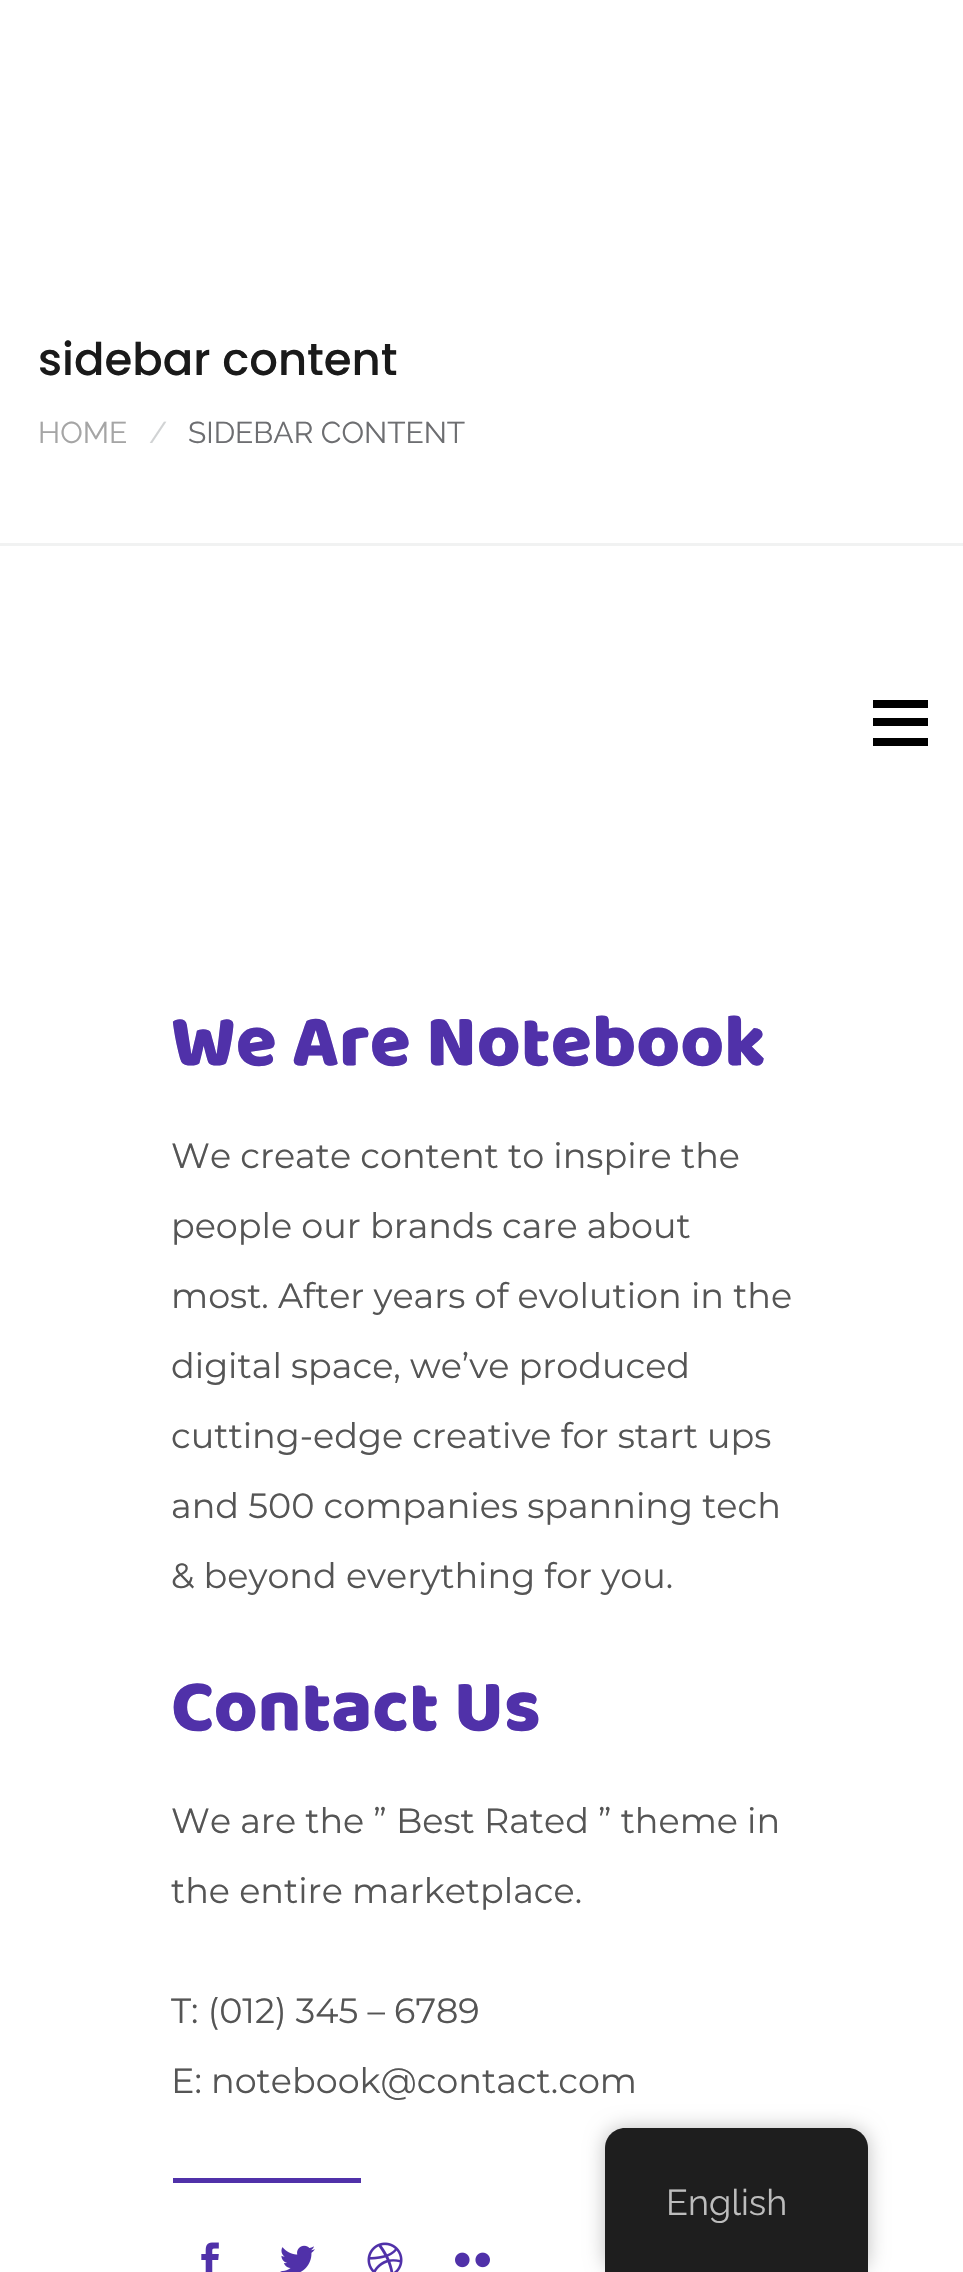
void draw(SkCanvas* canvas) {
    SkPaint paint;
    paint.setAntiAlias(true);
    canvas->clear(0xFFFFFFFF);
    paint.setColor(0xFFF1F2F2);
    canvas->drawRect(SkRect::MakeXYWH(0, 543, 963, 3), paint);
    SkFont font1(fontMgr->matchFamilyStyle("Poppins", SkFontStyle(500, SkFontStyle::kNormal_Width, SkFontStyle::kUpright_Slant)), 45);
    font1.setSubpixel(true);
    paint.setColor(0xFF1A1A1A);
    canvas->drawString("sidebar content", 38, 375, font1, paint);
    SkFont font2(fontMgr->matchFamilyStyle("Raleway", SkFontStyle::Normal()), 30);
    font2.setSubpixel(true);
    paint.setColor(0xFFA5A5A5);
    canvas->drawString("HOME", 38, 443, font2, paint);
    paint.setColor(0xFFD1D3D4);
    canvas->drawString("/", 149, 443, font2, paint);
    paint.setColor(0xFF6D6E71);
    canvas->drawString("SIDEBAR CONTENT", 188, 443, font2, paint);
    SkFont font3(fontMgr->matchFamilyStyle("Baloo", SkFontStyle::Normal()), 75);
    font3.setSubpixel(true);
    paint.setColor(0xFF5031A9);
    canvas->drawString("We Are Notebook", 171, 1065, font3, paint);
    SkFont font4(fontMgr->matchFamilyStyle("Montserrat", SkFontStyle(100, SkFontStyle::kNormal_Width, SkFontStyle::kUpright_Slant)), 35);
    font4.setSubpixel(true);
    paint.setColor(0xFF555555);
    canvas->drawString("We create content to inspire the", 171, 1168, font4, paint);
    canvas->drawString("people our brands care about", 171, 1238, font4, paint);
    canvas->drawString("most. After years of evolution in the", 171, 1308, font4, paint);
    canvas->drawString("digital space, we’ve produced", 171, 1378, font4, paint);
    canvas->drawString("cutting-edge creative for start ups", 171, 1448, font4, paint);
    canvas->drawString("and 500 companies spanning tech", 171, 1518, font4, paint);
    canvas->drawString("& beyond everything for you.", 171, 1588, font4, paint);
    paint.setColor(0xFF5031A9);
    canvas->drawString("Contact Us", 171, 1730, font3, paint);
    paint.setColor(0xFF555555);
    canvas->drawString("We are the ” Best Rated ” theme in", 171, 1833, font4, paint);
    canvas->drawString("the entire marketplace.", 171, 1903, font4, paint);
    canvas->drawString("T: (012) 345 – 6789", 171, 2023, font4, paint);
    canvas->drawString("E: notebook@contact.com", 171, 2093, font4, paint);
    paint.setColor(0xFF5031A9);
    canvas->drawRect(SkRect::MakeXYWH(173, 2178, 188, 5), paint);
    canvas->drawImageRect(SkImages::DeferredFromEncodedData(SkData::MakeFromFileName("img1.png")), SkRect::MakeXYWH(201, 2242, 18, 30), SkSamplingOptions());
    canvas->drawImageRect(SkImages::DeferredFromEncodedData(SkData::MakeFromFileName("img2.png")), SkRect::MakeXYWH(280, 2245, 35, 27), SkSamplingOptions());
    canvas->drawImageRect(SkImages::DeferredFromEncodedData(SkData::MakeFromFileName("img3.png")), SkRect::MakeXYWH(367, 2242, 36, 30), SkSamplingOptions());
    canvas->drawImageRect(SkImages::DeferredFromEncodedData(SkData::MakeFromFileName("img4.png")), SkRect::MakeXYWH(455, 2252, 35, 16), SkSamplingOptions());
    paint.setColor(0xFF000000);
    canvas->drawRect(SkRect::MakeXYWH(873, 718, 55, 8), paint);
    canvas->drawRect(SkRect::MakeXYWH(873, 700, 55, 8), paint);
    canvas->drawRect(SkRect::MakeXYWH(873, 738, 55, 8), paint);
    paint.setColor(0x40000000);
    paint.setMaskFilter(SkMaskFilter::MakeBlur(kNormal_SkBlurStyle, 10));
    canvas->drawRoundRect(SkRect::MakeXYWH(605, 2128, 263, 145), 20, 20, paint);
    paint.setMaskFilter(nullptr);
    paint.setColor(0xFF1E1E1E);
    canvas->drawPath(SkPathBuilder().moveTo(625, 2128).lineTo(848, 2128).cubicTo(859, 2128, 868, 2137, 868, 2148).lineTo(868, 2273).lineTo(605, 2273).lineTo(605, 2148).cubicTo(605, 2137, 614, 2128, 625, 2128).close().detach(), paint);
    SkFont font5(fontMgr->matchFamilyStyle("Raleway", SkFontStyle::Normal()), 36);
    font5.setSubpixel(true);
    paint.setColor(0xFFBDBDBD);
    canvas->drawString("English", 666, 2215, font5, paint);
}
